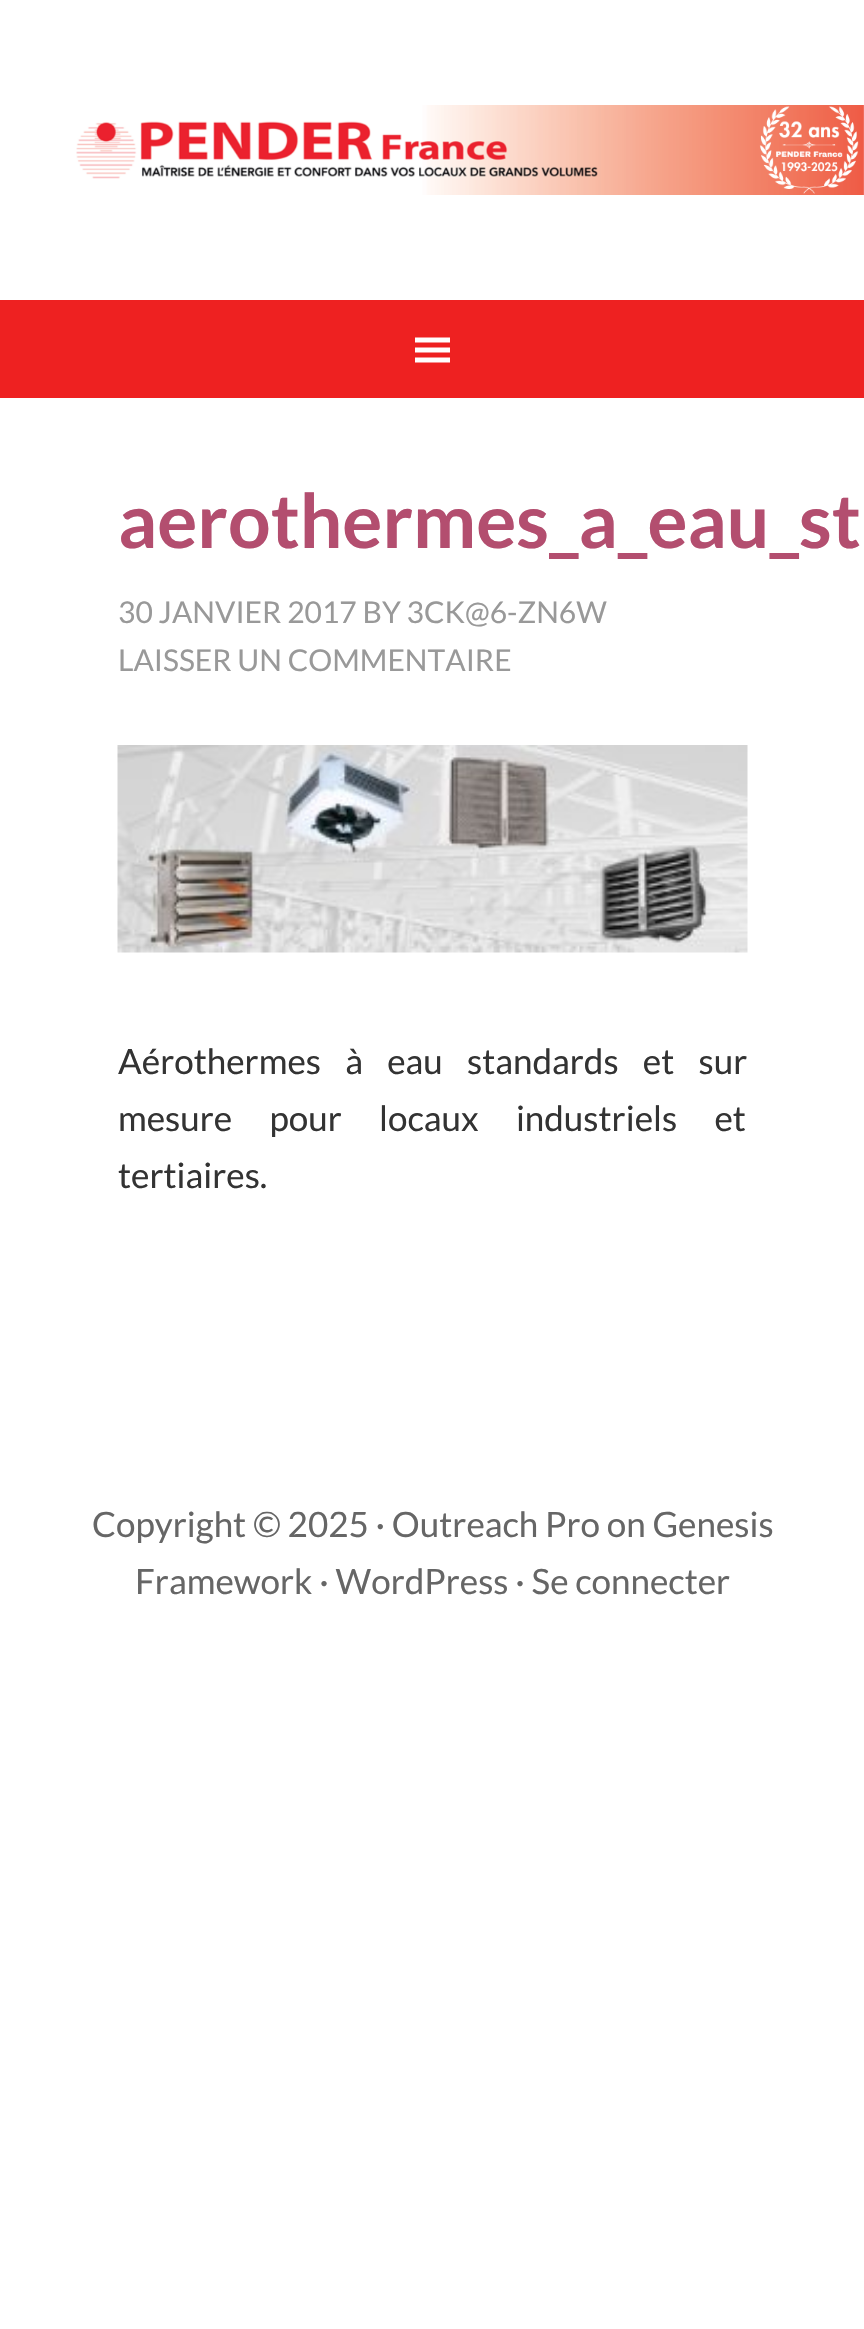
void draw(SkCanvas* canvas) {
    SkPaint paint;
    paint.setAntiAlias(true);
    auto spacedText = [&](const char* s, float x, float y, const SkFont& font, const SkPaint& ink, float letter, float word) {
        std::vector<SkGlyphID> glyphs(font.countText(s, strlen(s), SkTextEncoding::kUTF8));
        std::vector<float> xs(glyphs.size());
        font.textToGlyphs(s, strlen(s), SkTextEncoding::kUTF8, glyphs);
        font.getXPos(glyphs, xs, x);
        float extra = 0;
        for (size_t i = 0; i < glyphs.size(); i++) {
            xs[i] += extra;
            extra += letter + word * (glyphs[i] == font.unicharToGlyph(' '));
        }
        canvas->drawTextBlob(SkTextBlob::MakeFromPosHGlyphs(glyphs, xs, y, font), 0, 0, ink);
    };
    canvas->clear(0xFFFFFFFF);
    canvas->drawImageRect(SkImages::DeferredFromEncodedData(SkData::MakeFromFileName("img1.png")), SkRect::MakeXYWH(76, 105, 788, 90), SkSamplingOptions());
    paint.setColor(0xFFEE2121);
    canvas->drawRect(SkRect::MakeXYWH(0, 300, 864, 98), paint);
    paint.setColor(0xFFFFFFFF);
    canvas->drawPath(SkPathBuilder().moveTo(415, 362.5f).lineTo(450, 362.5f).lineTo(450, 357.5f).lineTo(415, 357.5f).close().moveTo(415, 337.5f).lineTo(415, 342.5f).lineTo(450, 342.5f).lineTo(450, 337.5f).close().moveTo(415, 352.5f).lineTo(450, 352.5f).lineTo(450, 347.5f).lineTo(415, 347.5f).close().detach(), paint);
    SkFont font1(fontMgr->matchFamilyStyle("Lato", SkFontStyle::Bold()), 75);
    font1.setSubpixel(true);
    paint.setColor(0xFFB34E6F);
    canvas->drawString("aerothermes_a_eau_st", 118, 548, font1, paint);
    SkFont font2(fontMgr->matchFamilyStyle("Lato", SkFontStyle::Normal()), 30);
    font2.setSubpixel(true);
    paint.setColor(0xFF999999);
    canvas->drawString("30 JANVIER 2017 BY 3CK@6-ZN6W", 118, 623, font2, paint);
    canvas->drawString("LAISSER UN COMMENTAIRE", 118, 671, font2, paint);
    canvas->drawImageRect(SkImages::DeferredFromEncodedData(SkData::MakeFromFileName("img2.png")), SkRect::MakeXYWH(117, 745, 631, 208), SkSamplingOptions());
    SkFont font3(fontMgr->matchFamilyStyle("Lato", SkFontStyle::Normal()), 35);
    font3.setSubpixel(true);
    paint.setColor(0xFF333333);
    spacedText("Aérothermes à eau standards et sur", 118, 1074, font3, paint, 0, 17.5f);
    spacedText("mesure pour locaux industriels et", 118, 1131, font3, paint, 0, 30.5f);
    canvas->drawString("tertiaires.", 118, 1188, font3, paint);
    paint.setColor(0xFF666666);
    canvas->drawString("Copyright © 2025 · Outreach Pro on Genesis", 92, 1537, font3, paint);
    canvas->drawString("Framework · WordPress · Se connecter", 135, 1594, font3, paint);
}
